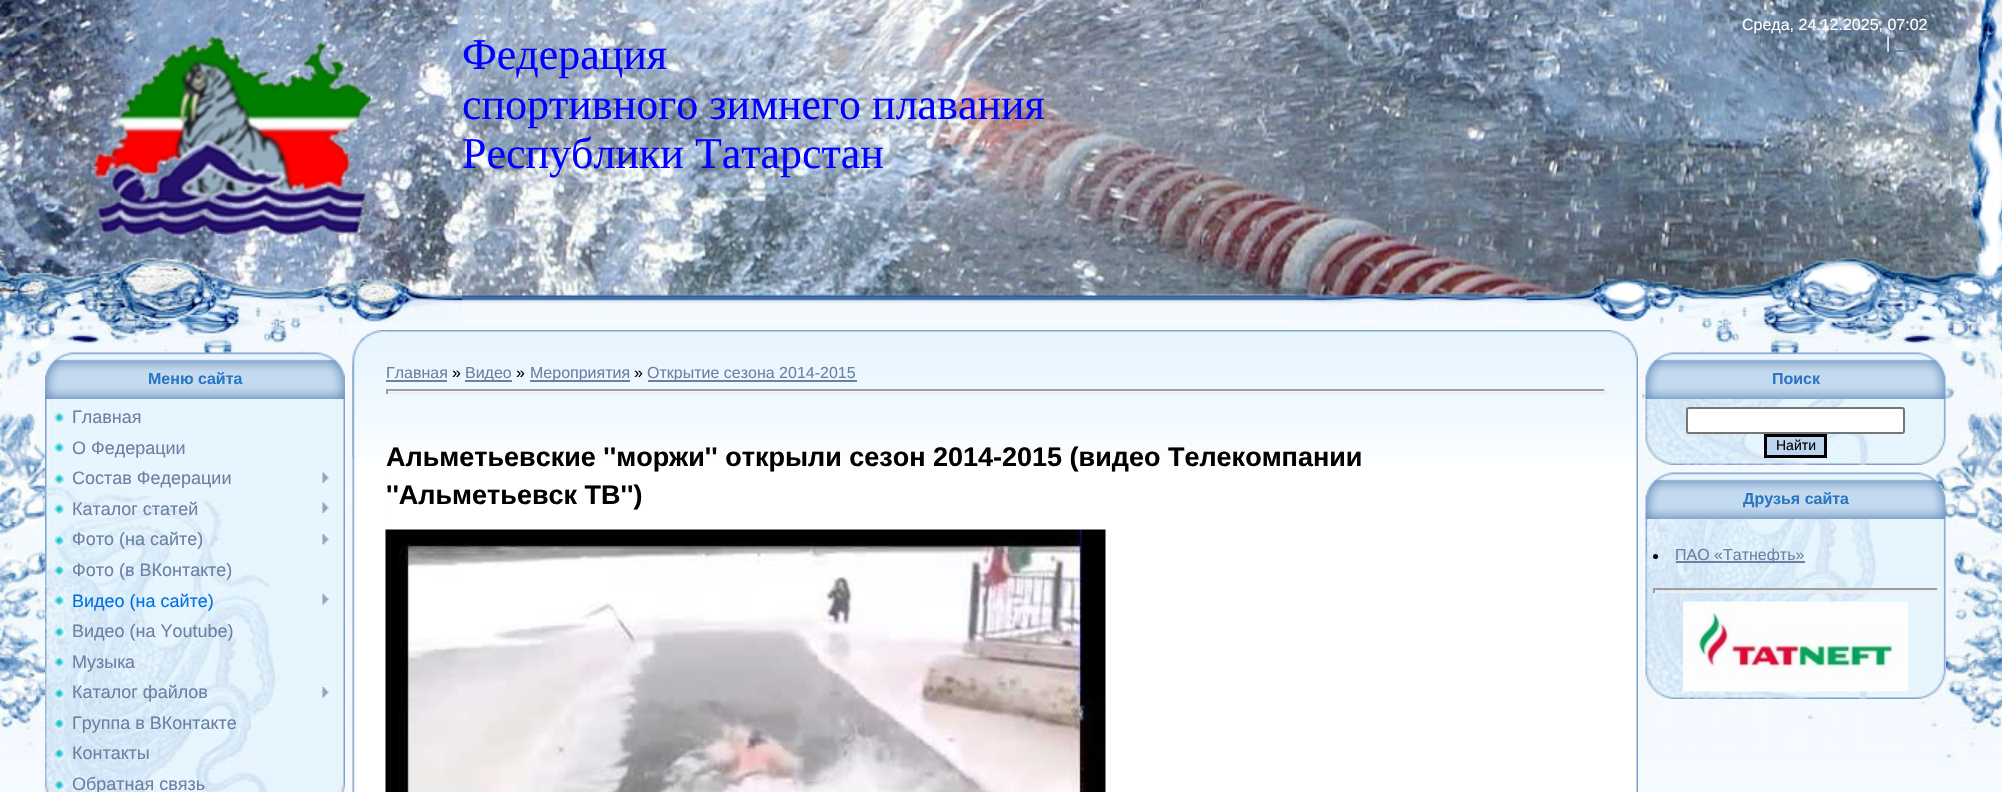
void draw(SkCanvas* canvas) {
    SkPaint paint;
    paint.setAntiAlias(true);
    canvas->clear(0xFFF4FAFF);
    canvas->drawImageRect(SkImages::DeferredFromEncodedData(SkData::MakeFromFileName("img1.png")), SkRect::MakeXYWH(0, 0, 2002, 323), SkSamplingOptions());
    canvas->drawImageRect(SkImages::DeferredFromEncodedData(SkData::MakeFromFileName("img5.png")), SkRect::MakeXYWH(0, 322, 370, 442), SkSamplingOptions());
    canvas->drawImageRect(SkImages::DeferredFromEncodedData(SkData::MakeFromFileName("img2.png")), SkRect::MakeXYWH(0, 0, 462, 323), SkSamplingOptions());
    canvas->drawImageRect(SkImages::DeferredFromEncodedData(SkData::MakeFromFileName("img3.png")), SkRect::MakeXYWH(1527, 0, 475, 323), SkSamplingOptions());
    SkFont font1(fontMgr->matchFamilyStyle("Liberation Sans", SkFontStyle::Normal()), 16);
    font1.setSubpixel(true);
    paint.setColor(0xFFFFFFFF);
    canvas->drawString("Среда, 24.12.2025, 07:02", 1742, 30, font1, paint);
    canvas->drawString("|", 1886, 48, font1, paint);
    paint.setColor(0xFF6B80A3);
    canvas->drawRect(SkRect::MakeXYWH(1895, 50, 33, 2), paint);
    SkFont font2(fontMgr->matchFamilyStyle("Liberation Serif", SkFontStyle::Normal()), 44);
    font2.setSubpixel(true);
    paint.setColor(0xFF0000FF);
    canvas->drawString("Федерация", 462, 69, font2, paint);
    canvas->drawString("спортивного зимнего плавания", 462, 119, font2, paint);
    canvas->drawString("Республики Татарстан", 462, 168, font2, paint);
    canvas->drawImageRect(SkImages::DeferredFromEncodedData(SkData::MakeFromFileName("img4.png")), SkRect::MakeXYWH(1633, 322, 369, 442), SkSamplingOptions());
    canvas->drawImageRect(SkImages::DeferredFromEncodedData(SkData::MakeFromFileName("img6.png")), SkRect::MakeXYWH(45, 352, 300, 47), SkSamplingOptions());
    SkFont font3(fontMgr->matchFamilyStyle("Liberation Sans", SkFontStyle::Bold()), 16);
    font3.setSubpixel(true);
    paint.setColor(0xFF2A75C4);
    canvas->drawString("Меню сайта", 148, 384, font3, paint);
    canvas->drawImageRect(SkImages::DeferredFromEncodedData(SkData::MakeFromFileName("img7.png")), SkRect::MakeXYWH(45, 399, 300, 393), SkSamplingOptions());
    canvas->drawImageRect(SkImages::DeferredFromEncodedData(SkData::MakeFromFileName("img8.png")), SkRect::MakeXYWH(52, 412, 14, 13), SkSamplingOptions());
    SkFont font4(fontMgr->matchFamilyStyle("Liberation Sans", SkFontStyle::Normal()), 18);
    font4.setSubpixel(true);
    paint.setColor(0xFF6B80A3);
    canvas->drawString("Главная", 72, 423, font4, paint);
    canvas->drawImageRect(SkImages::DeferredFromEncodedData(SkData::MakeFromFileName("img8.png")), SkRect::MakeXYWH(52, 442, 14, 13), SkSamplingOptions());
    canvas->drawString("О Федерации", 72, 454, font4, paint);
    canvas->drawImageRect(SkImages::DeferredFromEncodedData(SkData::MakeFromFileName("img9.png")), SkRect::MakeXYWH(52, 473, 14, 13), SkSamplingOptions());
    canvas->drawString("Состав Федерации", 72, 484, font4, paint);
    canvas->drawImageRect(SkImages::DeferredFromEncodedData(SkData::MakeFromFileName("img10.png")), SkRect::MakeXYWH(322, 472, 7, 11), SkSamplingOptions());
    canvas->drawImageRect(SkImages::DeferredFromEncodedData(SkData::MakeFromFileName("img11.png")), SkRect::MakeXYWH(52, 503, 14, 13), SkSamplingOptions());
    canvas->drawString("Каталог статей", 72, 515, font4, paint);
    canvas->drawImageRect(SkImages::DeferredFromEncodedData(SkData::MakeFromFileName("img10.png")), SkRect::MakeXYWH(322, 502, 7, 11), SkSamplingOptions());
    canvas->drawImageRect(SkImages::DeferredFromEncodedData(SkData::MakeFromFileName("img12.png")), SkRect::MakeXYWH(52, 534, 14, 14), SkSamplingOptions());
    canvas->drawString("Фото (на сайте)", 72, 545, font4, paint);
    canvas->drawImageRect(SkImages::DeferredFromEncodedData(SkData::MakeFromFileName("img13.png")), SkRect::MakeXYWH(322, 534, 7, 11), SkSamplingOptions());
    canvas->drawImageRect(SkImages::DeferredFromEncodedData(SkData::MakeFromFileName("img14.png")), SkRect::MakeXYWH(52, 565, 14, 13), SkSamplingOptions());
    canvas->drawString("Фото (в ВКонтакте)", 72, 576, font4, paint);
    canvas->drawImageRect(SkImages::DeferredFromEncodedData(SkData::MakeFromFileName("img15.png")), SkRect::MakeXYWH(53, 594, 13, 14), SkSamplingOptions());
    paint.setColor(0xFF006FE3);
    canvas->drawString("Видео (на сайте)", 72, 607, font4, paint);
    canvas->drawImageRect(SkImages::DeferredFromEncodedData(SkData::MakeFromFileName("img13.png")), SkRect::MakeXYWH(322, 594, 7, 11), SkSamplingOptions());
    canvas->drawImageRect(SkImages::DeferredFromEncodedData(SkData::MakeFromFileName("img16.png")), SkRect::MakeXYWH(52, 625, 14, 14), SkSamplingOptions());
    paint.setColor(0xFF6B80A3);
    canvas->drawString("Видео (на Youtube)", 72, 637, font4, paint);
    canvas->drawImageRect(SkImages::DeferredFromEncodedData(SkData::MakeFromFileName("img17.png")), SkRect::MakeXYWH(52, 655, 14, 14), SkSamplingOptions());
    canvas->drawString("Музыка", 72, 668, font4, paint);
    canvas->drawImageRect(SkImages::DeferredFromEncodedData(SkData::MakeFromFileName("img18.png")), SkRect::MakeXYWH(52, 687, 14, 14), SkSamplingOptions());
    canvas->drawString("Каталог файлов", 72, 698, font4, paint);
    canvas->drawImageRect(SkImages::DeferredFromEncodedData(SkData::MakeFromFileName("img13.png")), SkRect::MakeXYWH(322, 687, 7, 11), SkSamplingOptions());
    canvas->drawImageRect(SkImages::DeferredFromEncodedData(SkData::MakeFromFileName("img19.png")), SkRect::MakeXYWH(52, 717, 14, 14), SkSamplingOptions());
    canvas->drawString("Группа в ВКонтакте", 72, 729, font4, paint);
    canvas->drawImageRect(SkImages::DeferredFromEncodedData(SkData::MakeFromFileName("img20.png")), SkRect::MakeXYWH(52, 747, 14, 14), SkSamplingOptions());
    canvas->drawString("Контакты", 72, 759, font4, paint);
    canvas->drawImageRect(SkImages::DeferredFromEncodedData(SkData::MakeFromFileName("img21.png")), SkRect::MakeXYWH(52, 778, 14, 14), SkSamplingOptions());
    canvas->drawString("Обратная связь", 72, 790, font4, paint);
    canvas->drawImageRect(SkImages::DeferredFromEncodedData(SkData::MakeFromFileName("img23.png")), SkRect::MakeXYWH(385, 330, 1220, 33), SkSamplingOptions());
    canvas->drawImageRect(SkImages::DeferredFromEncodedData(SkData::MakeFromFileName("img22.png")), SkRect::MakeXYWH(352, 330, 34, 33), SkSamplingOptions());
    canvas->drawImageRect(SkImages::DeferredFromEncodedData(SkData::MakeFromFileName("img24.png")), SkRect::MakeXYWH(1605, 330, 33, 33), SkSamplingOptions());
    canvas->drawImageRect(SkImages::DeferredFromEncodedData(SkData::MakeFromFileName("img25.png")), SkRect::MakeXYWH(352, 363, 34, 429), SkSamplingOptions());
    canvas->drawImageRect(SkImages::DeferredFromEncodedData(SkData::MakeFromFileName("img27.png")), SkRect::MakeXYWH(385, 363, 1220, 94), SkSamplingOptions());
    canvas->drawImageRect(SkImages::DeferredFromEncodedData(SkData::MakeFromFileName("img26.png")), SkRect::MakeXYWH(352, 363, 34, 95), SkSamplingOptions());
    paint.setColor(0xFFFFFFFF);
    canvas->drawRect(SkRect::MakeXYWH(386, 457, 1219, 335), paint);
    paint.setColor(0xFF6B80A3);
    canvas->drawString("Главная", 386, 378, font1, paint);
    canvas->drawRect(SkRect::MakeXYWH(386, 380, 61, 2), paint);
    paint.setColor(0xFF000000);
    canvas->drawString("»", 452, 378, font1, paint);
    paint.setColor(0xFF6B80A3);
    canvas->drawRect(SkRect::MakeXYWH(465, 380, 47, 2), paint);
    canvas->drawString("Видео", 465, 378, font1, paint);
    paint.setColor(0xFF000000);
    canvas->drawString("»", 516, 378, font1, paint);
    paint.setColor(0xFF6B80A3);
    canvas->drawRect(SkRect::MakeXYWH(530, 380, 100, 2), paint);
    canvas->drawString("Мероприятия", 530, 378, font1, paint);
    paint.setColor(0xFF000000);
    canvas->drawString("»", 634, 378, font1, paint);
    paint.setColor(0xFF6B80A3);
    canvas->drawRect(SkRect::MakeXYWH(648, 380, 209, 2), paint);
    canvas->drawString("Открытие сезона 2014-2015", 647, 378, font1, paint);
    paint.setColor(0xFF9F9F9F);
    canvas->drawRect(SkRect::MakeXYWH(386, 389, 1219, 2), paint);
    canvas->drawImageRect(SkImages::DeferredFromEncodedData(SkData::MakeFromFileName("img29.png")), SkRect::MakeXYWH(1605, 363, 33, 429), SkSamplingOptions());
    canvas->drawImageRect(SkImages::DeferredFromEncodedData(SkData::MakeFromFileName("img30.png")), SkRect::MakeXYWH(1605, 363, 32, 94), SkSamplingOptions());
    paint.setColor(0xFFEEEEEE);
    canvas->drawRect(SkRect::MakeXYWH(1604, 389, 2, 5), paint);
    canvas->drawRect(SkRect::MakeXYWH(386, 392, 1219, 2), paint);
    paint.setColor(0xFF9F9F9F);
    canvas->drawRect(SkRect::MakeXYWH(386, 389, 2, 5), paint);
    SkFont font5(fontMgr->matchFamilyStyle("Liberation Sans", SkFontStyle::Bold()), 27);
    font5.setSubpixel(true);
    paint.setColor(0xFF000000);
    canvas->drawString("Альметьевские ''моржи'' открыли сезон 2014-2015 (видео Телекомпании", 386, 466, font5, paint);
    canvas->drawString("''Альметьевск ТВ'')", 386, 504, font5, paint);
    canvas->drawImageRect(SkImages::DeferredFromEncodedData(SkData::MakeFromFileName("img28.png")), SkRect::MakeXYWH(385, 529, 721, 263), SkSamplingOptions());
    canvas->drawImageRect(SkImages::DeferredFromEncodedData(SkData::MakeFromFileName("img31.png")), SkRect::MakeXYWH(1645, 352, 301, 47), SkSamplingOptions());
    paint.setColor(0xFF2A75C4);
    canvas->drawString("Поиск", 1772, 384, font3, paint);
    paint.setColor(0xFFE7F5FF);
    canvas->drawRect(SkRect::MakeXYWH(1945, 399, 1, 66), paint);
    canvas->drawImageRect(SkImages::DeferredFromEncodedData(SkData::MakeFromFileName("img32.png")), SkRect::MakeXYWH(1645, 399, 301, 66), SkSamplingOptions());
    paint.setColor(0xFFFFFFFF);
    canvas->drawRoundRect(SkRect::MakeXYWH(1687, 408, 217, 25), 2, 2, paint);
    paint.setStyle(SkPaint::kStroke_Style);
    paint.setStrokeWidth(2);
    paint.setColor(0xFF767676);
    canvas->drawRoundRect(SkRect::MakeXYWH(1687, 408, 217, 25), 2, 2, paint);
    paint.setStyle(SkPaint::kFill_Style);
    paint.setColor(0xFFBCD4EB);
    canvas->drawRect(SkRect::MakeXYWH(1765.5f, 435.5f, 60, 21), paint);
    paint.setStyle(SkPaint::kStroke_Style);
    paint.setStrokeWidth(3);
    paint.setColor(0xFF000000);
    canvas->drawRect(SkRect::MakeXYWH(1765.5f, 435.5f, 60, 21), paint);
    SkFont font6(fontMgr->matchFamilyStyle("Liberation Sans", SkFontStyle::Normal()), 14);
    font6.setSubpixel(true);
    paint.setStyle(SkPaint::kFill_Style);
    canvas->drawString("Найти", 1776, 450, font6, paint);
    canvas->drawImageRect(SkImages::DeferredFromEncodedData(SkData::MakeFromFileName("img33.png")), SkRect::MakeXYWH(1645, 472, 301, 47), SkSamplingOptions());
    paint.setColor(0xFF2A75C4);
    canvas->drawString("Друзья сайта", 1743, 504, font3, paint);
    paint.setColor(0xFFE7F5FF);
    canvas->drawRect(SkRect::MakeXYWH(1945, 519, 1, 180), paint);
    canvas->drawImageRect(SkImages::DeferredFromEncodedData(SkData::MakeFromFileName("img34.png")), SkRect::MakeXYWH(1645, 519, 301, 180), SkSamplingOptions());
    paint.setColor(0xFF000000);
    canvas->drawCircle(1655.5f, 556.5f, 2.5f, paint);
    paint.setColor(0xFF6B80A3);
    canvas->drawRect(SkRect::MakeXYWH(1676, 561, 129, 2), paint);
    canvas->drawString("ПАО «Татнефть»", 1675, 560, font1, paint);
    paint.setColor(0xFF9F9F9F);
    canvas->drawRect(SkRect::MakeXYWH(1653, 588, 285, 2), paint);
    paint.setColor(0xFFEEEEEE);
    canvas->drawRect(SkRect::MakeXYWH(1937, 588, 2, 5), paint);
    canvas->drawRect(SkRect::MakeXYWH(1653, 591, 285, 2), paint);
    paint.setColor(0xFF9F9F9F);
    canvas->drawRect(SkRect::MakeXYWH(1653, 588, 2, 5), paint);
    canvas->drawImageRect(SkImages::DeferredFromEncodedData(SkData::MakeFromFileName("img35.png")), SkRect::MakeXYWH(1683, 601, 225, 91), SkSamplingOptions());
}
